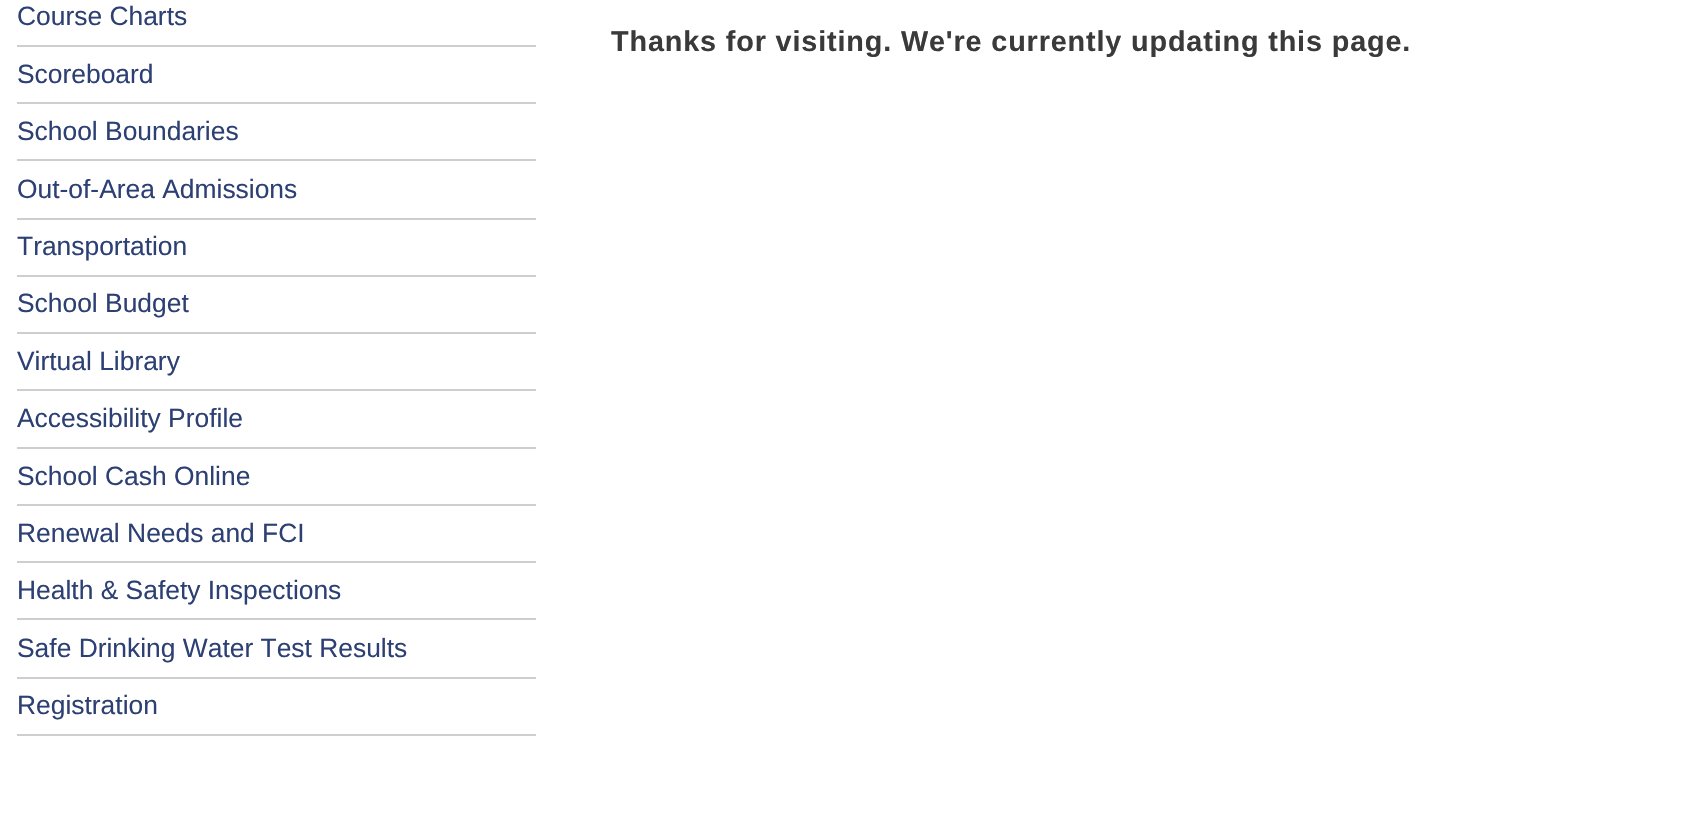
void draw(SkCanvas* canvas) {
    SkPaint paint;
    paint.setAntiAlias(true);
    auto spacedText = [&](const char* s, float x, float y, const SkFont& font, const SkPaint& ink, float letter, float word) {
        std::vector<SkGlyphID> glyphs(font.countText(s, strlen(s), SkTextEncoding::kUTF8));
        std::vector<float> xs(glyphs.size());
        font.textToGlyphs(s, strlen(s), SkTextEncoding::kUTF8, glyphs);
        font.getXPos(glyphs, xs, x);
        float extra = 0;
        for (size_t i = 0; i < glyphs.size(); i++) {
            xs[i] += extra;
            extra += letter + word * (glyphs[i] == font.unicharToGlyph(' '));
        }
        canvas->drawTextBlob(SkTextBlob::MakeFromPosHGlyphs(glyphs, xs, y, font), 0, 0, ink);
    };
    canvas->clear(0xFFFFFFFF);
    paint.setColor(0xFFCECECE);
    canvas->drawRect(SkRect::MakeXYWH(17, 45, 519, 2), paint);
    SkFont font1(fontMgr->matchFamilyStyle("Liberation Sans", SkFontStyle::Normal()), 26.4f);
    font1.setSubpixel(true);
    paint.setColor(0xFF2D4074);
    canvas->drawString("Course Charts", 17, 25, font1, paint);
    paint.setColor(0xFFCECECE);
    canvas->drawRect(SkRect::MakeXYWH(17, 102, 519, 2), paint);
    paint.setColor(0xFF2D4074);
    canvas->drawString("Scoreboard", 17, 83, font1, paint);
    paint.setColor(0xFFCECECE);
    canvas->drawRect(SkRect::MakeXYWH(17, 159, 519, 2), paint);
    paint.setColor(0xFF2D4074);
    canvas->drawString("School Boundaries", 17, 140, font1, paint);
    paint.setColor(0xFFCECECE);
    canvas->drawRect(SkRect::MakeXYWH(17, 218, 519, 2), paint);
    paint.setColor(0xFF2D4074);
    canvas->drawString("Out-of-Area Admissions", 17, 198, font1, paint);
    paint.setColor(0xFFCECECE);
    canvas->drawRect(SkRect::MakeXYWH(17, 275, 519, 2), paint);
    paint.setColor(0xFF2D4074);
    canvas->drawString("Transportation", 17, 255, font1, paint);
    paint.setColor(0xFFCECECE);
    canvas->drawRect(SkRect::MakeXYWH(17, 332, 519, 2), paint);
    paint.setColor(0xFF2D4074);
    canvas->drawString("School Budget", 17, 312, font1, paint);
    paint.setColor(0xFFCECECE);
    canvas->drawRect(SkRect::MakeXYWH(17, 389, 519, 2), paint);
    paint.setColor(0xFF2D4074);
    canvas->drawString("Virtual Library", 17, 370, font1, paint);
    paint.setColor(0xFFCECECE);
    canvas->drawRect(SkRect::MakeXYWH(17, 447, 519, 2), paint);
    paint.setColor(0xFF2D4074);
    canvas->drawString("Accessibility Profile", 17, 427, font1, paint);
    paint.setColor(0xFFCECECE);
    canvas->drawRect(SkRect::MakeXYWH(17, 504, 519, 2), paint);
    paint.setColor(0xFF2D4074);
    canvas->drawString("School Cash Online", 17, 485, font1, paint);
    paint.setColor(0xFFCECECE);
    canvas->drawRect(SkRect::MakeXYWH(17, 561, 519, 2), paint);
    paint.setColor(0xFF2D4074);
    canvas->drawString("Renewal Needs and FCI", 17, 542, font1, paint);
    paint.setColor(0xFFCECECE);
    canvas->drawRect(SkRect::MakeXYWH(17, 618, 519, 2), paint);
    paint.setColor(0xFF2D4074);
    canvas->drawString("Health & Safety Inspections", 17, 599, font1, paint);
    paint.setColor(0xFFCECECE);
    canvas->drawRect(SkRect::MakeXYWH(17, 677, 519, 2), paint);
    paint.setColor(0xFF2D4074);
    canvas->drawString("Safe Drinking Water Test Results", 17, 657, font1, paint);
    paint.setColor(0xFFCECECE);
    canvas->drawRect(SkRect::MakeXYWH(17, 734, 519, 2), paint);
    paint.setColor(0xFF2D4074);
    canvas->drawString("Registration", 17, 714, font1, paint);
    SkFont font2(fontMgr->matchFamilyStyle("Liberation Sans", SkFontStyle::Bold()), 28.8f);
    font2.setSubpixel(true);
    paint.setColor(0xFF3A3A3A);
    spacedText("Thanks for visiting. We're currently updating this page.", 611, 51, font2, paint, 0.85f, 0);
}
